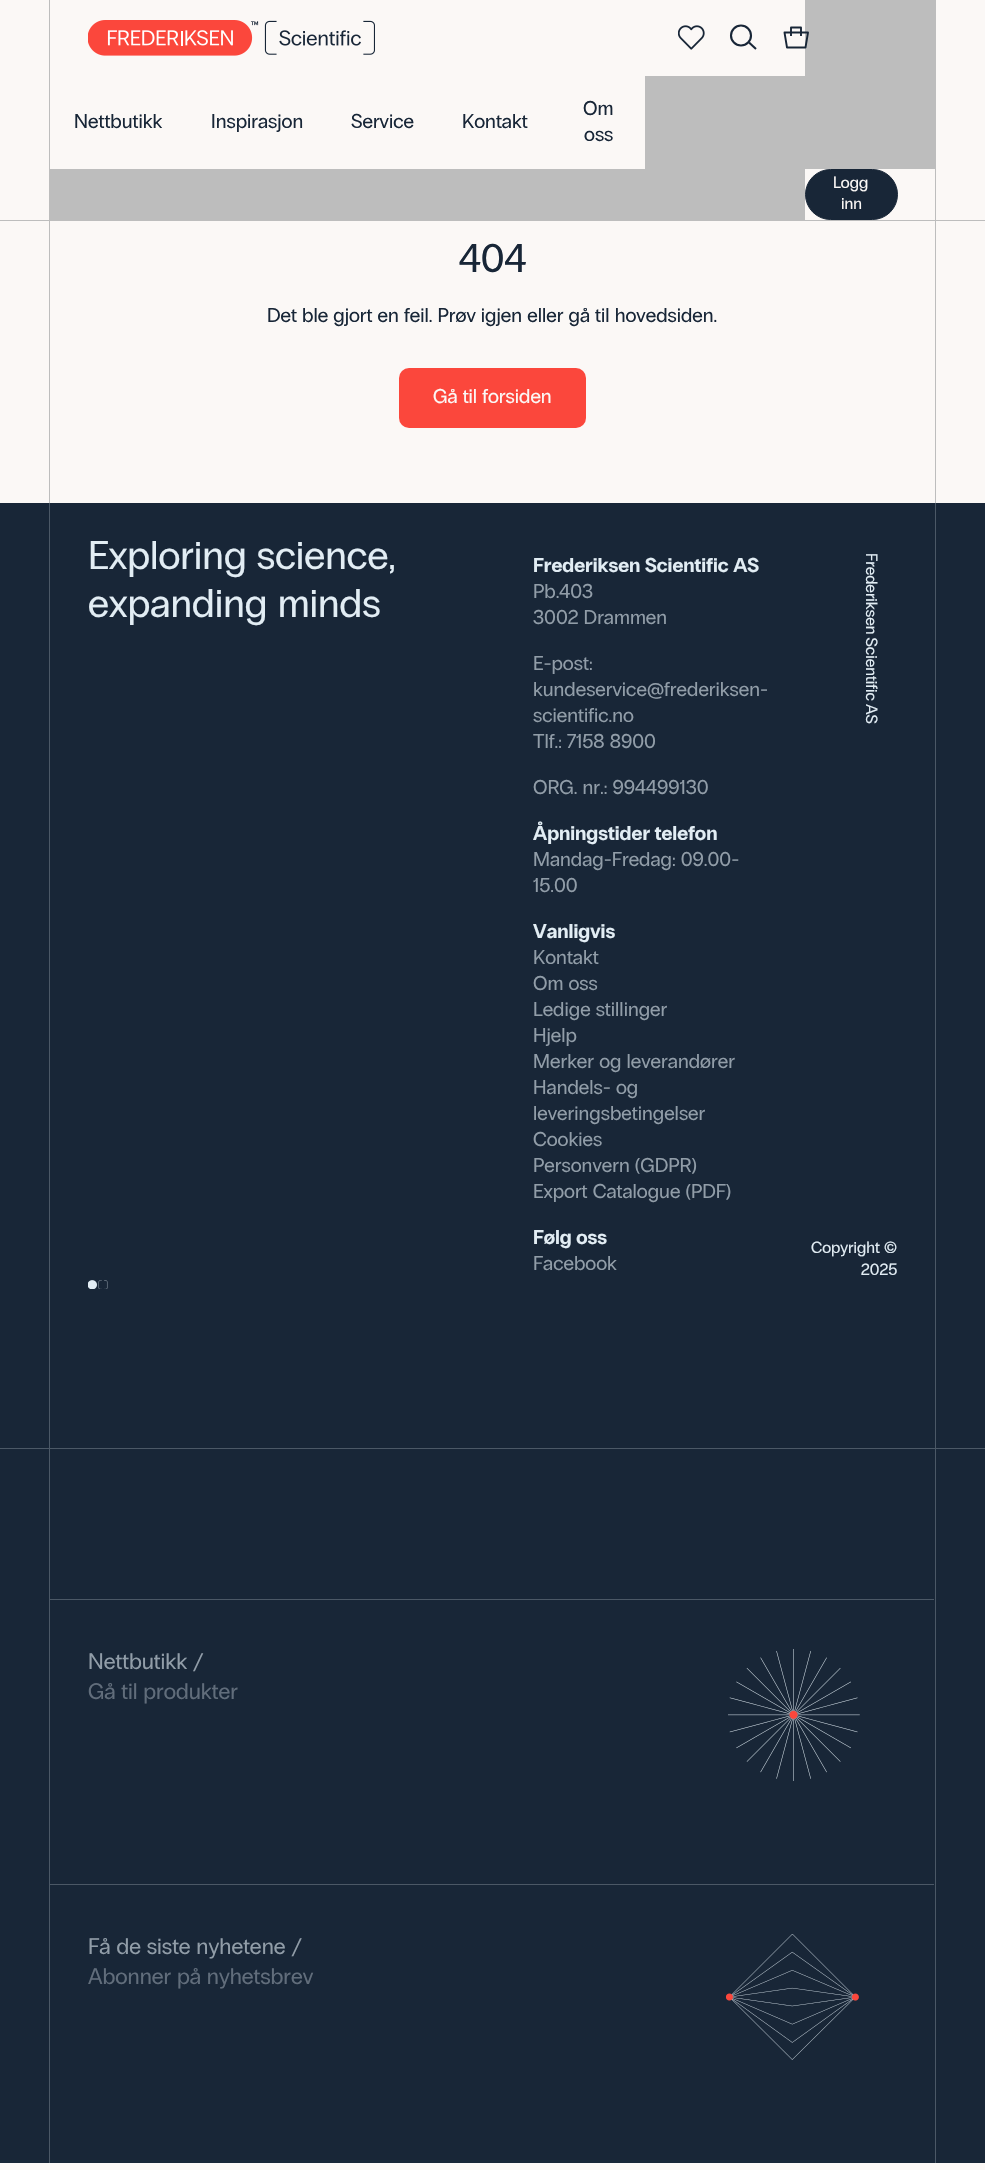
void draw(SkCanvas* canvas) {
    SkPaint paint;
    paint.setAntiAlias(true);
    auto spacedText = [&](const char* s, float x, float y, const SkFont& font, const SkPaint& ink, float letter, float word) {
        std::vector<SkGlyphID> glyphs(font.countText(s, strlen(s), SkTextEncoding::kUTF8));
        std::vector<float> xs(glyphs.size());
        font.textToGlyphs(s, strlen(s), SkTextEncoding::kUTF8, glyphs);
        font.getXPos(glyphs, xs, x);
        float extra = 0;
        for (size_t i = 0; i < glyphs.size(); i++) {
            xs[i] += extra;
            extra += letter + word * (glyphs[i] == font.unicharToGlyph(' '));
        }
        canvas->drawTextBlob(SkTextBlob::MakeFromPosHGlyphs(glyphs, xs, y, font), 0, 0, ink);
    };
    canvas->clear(0xFFFBF8F6);
    paint.setColor(0xFFBDBDBD);
    canvas->drawRect(SkRect::MakeXYWH(0, 220, 985, 1), paint);
    canvas->drawRect(SkRect::MakeXYWH(935, 0, 1, 220), paint);
    canvas->drawRect(SkRect::MakeXYWH(49, 0, 886, 220), paint);
    paint.setColor(0xFFFBF8F6);
    canvas->drawRect(SkRect::MakeXYWH(50, 0, 755, 76), paint);
    canvas->drawImageRect(SkImages::DeferredFromEncodedData(SkData::MakeFromFileName("img1.png")), SkRect::MakeXYWH(88, 20, 287, 36), SkSamplingOptions());
    canvas->drawImageRect(SkImages::DeferredFromEncodedData(SkData::MakeFromFileName("img2.png")), SkRect::MakeXYWH(678, 25, 27, 25), SkSamplingOptions());
    paint.setStyle(SkPaint::kStroke_Style);
    paint.setStrokeWidth(2.1f);
    paint.setColor(0xFF182637);
    canvas->drawCircle(741, 35.5f, 10, paint);
    canvas->drawPath(SkPathBuilder().moveTo(749, 42.5f).lineTo(756, 49).detach(), paint);
    paint.setStrokeWidth(1.9f);
    paint.setStrokeJoin(SkPaint::kRound_Join);
    canvas->drawPath(SkPathBuilder().moveTo(787, 47.5f).lineTo(784.5f, 32.5f).lineTo(808, 32.5f).lineTo(805.5f, 47.5f).close().moveTo(791, 36).lineTo(791, 27.5f).lineTo(801, 27.5f).lineTo(801, 36).detach(), paint);
    paint.setStyle(SkPaint::kFill_Style);
    paint.setColor(0xFFFBF8F6);
    canvas->drawRect(SkRect::MakeXYWH(50, 76, 595, 93), paint);
    SkFont font1(fontMgr->matchFamilyStyle("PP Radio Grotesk", SkFontStyle::Normal()), 20);
    font1.setSubpixel(true);
    paint.setColor(0xFF182637);
    canvas->drawString("Nettbutikk", 74, 128, font1, paint);
    canvas->drawString("Inspirasjon", 211, 128, font1, paint);
    canvas->drawString("Service", 351, 128, font1, paint);
    canvas->drawString("Kontakt", 462, 128, font1, paint);
    canvas->drawString("Om", 583, 115, font1, paint);
    canvas->drawString("oss", 584, 141, font1, paint);
    paint.setColor(0xFFFBF8F6);
    canvas->drawRect(SkRect::MakeXYWH(805, 169, 130, 51), paint);
    paint.setColor(0xFF182637);
    canvas->drawRoundRect(SkRect::MakeXYWH(805.5f, 169.5f, 92, 50), 25, 25, paint);
    paint.setStyle(SkPaint::kStroke_Style);
    paint.setStrokeWidth(1);
    paint.setStrokeJoin(SkPaint::kMiter_Join);
    canvas->drawRoundRect(SkRect::MakeXYWH(805.5f, 169.5f, 92, 50), 25, 25, paint);
    SkFont font2(fontMgr->matchFamilyStyle("PP Radio Grotesk", SkFontStyle::Normal()), 16.25f);
    font2.setSubpixel(true);
    paint.setStyle(SkPaint::kFill_Style);
    paint.setColor(0xFFFBF8F6);
    canvas->drawString("Logg", 833, 188, font2, paint);
    canvas->drawString("inn", 841, 209, font2, paint);
    paint.setColor(0xFFBDBDBD);
    canvas->drawRect(SkRect::MakeXYWH(935, 221, 1, 282), paint);
    canvas->drawRect(SkRect::MakeXYWH(49, 221, 1, 282), paint);
    SkFont font3(fontMgr->matchFamilyStyle("PP Radio Grotesk", SkFontStyle::Normal()), 40);
    font3.setSubpixel(true);
    paint.setColor(0xFF182637);
    canvas->drawString("404", 459, 272, font3, paint);
    canvas->drawString("Det ble gjort en feil. Prøv igjen eller gå til hovedsiden.", 267, 322, font1, paint);
    paint.setColor(0xFFFB473C);
    canvas->drawRoundRect(SkRect::MakeXYWH(399, 368, 187, 60), 10, 10, paint);
    paint.setColor(0xFFFBF8F6);
    canvas->drawString("Gå til forsiden", 433, 403, font1, paint);
    paint.setColor(0xFF182637);
    canvas->drawRect(SkRect::MakeXYWH(0, 503, 985, 1660), paint);
    paint.setColor(0xFF4B5866);
    canvas->drawRect(SkRect::MakeXYWH(935, 503, 1, 1660), paint);
    canvas->drawRect(SkRect::MakeXYWH(49, 503, 1, 1660), paint);
    paint.setColor(0xFFE2EDF4);
    canvas->drawString("Exploring science,", 88, 569, font3, paint);
    canvas->drawString("expanding minds", 88, 617, font3, paint);
    SkFont font4(fontMgr->matchFamilyStyle("PP Radio Grotesk", SkFontStyle::Bold()), 20);
    font4.setSubpixel(true);
    canvas->drawString("Frederiksen Scientific AS", 533, 572, font4, paint);
    paint.setColor(0xFF919DA8);
    canvas->drawString("Pb.403", 533, 598, font1, paint);
    canvas->drawString("3002 Drammen", 533, 624, font1, paint);
    canvas->drawString("E-post:", 533, 670, font1, paint);
    canvas->drawString("kundeservice@frederiksen-", 533, 696, font1, paint);
    canvas->drawString("scientific.no", 533, 722, font1, paint);
    canvas->drawString("Tlf.: 7158 8900", 533, 748, font1, paint);
    canvas->drawString("ORG. nr.: 994499130", 533, 794, font1, paint);
    paint.setColor(0xFFE2EDF4);
    canvas->drawString("Åpningstider telefon", 533, 840, font4, paint);
    paint.setColor(0xFF919DA8);
    canvas->drawString("Mandag-Fredag: 09.00-", 533, 866, font1, paint);
    canvas->drawString("15.00", 533, 892, font1, paint);
    paint.setColor(0xFFE2EDF4);
    canvas->drawString("Vanligvis", 533, 938, font4, paint);
    paint.setColor(0xFF919DA8);
    canvas->drawString("Kontakt", 533, 964, font1, paint);
    canvas->drawString("Om oss", 533, 990, font1, paint);
    canvas->drawString("Ledige stillinger", 533, 1016, font1, paint);
    canvas->drawString("Hjelp", 533, 1042, font1, paint);
    canvas->drawString("Merker og leverandører", 533, 1068, font1, paint);
    canvas->drawString("Handels- og", 533, 1094, font1, paint);
    canvas->drawString("leveringsbetingelser", 533, 1120, font1, paint);
    canvas->drawString("Cookies", 533, 1146, font1, paint);
    canvas->drawString("Personvern (GDPR)", 533, 1172, font1, paint);
    canvas->drawString("Export Catalogue (PDF)", 533, 1198, font1, paint);
    paint.setColor(0xFFE2EDF4);
    canvas->drawString("Følg oss", 533, 1244, font4, paint);
    paint.setColor(0xFF919DA8);
    canvas->drawString("Facebook", 533, 1270, font1, paint);
    paint.setColor(0xFFE2EDF4);
    canvas->save();
    canvas->rotate(90, 866, 553);
    spacedText("Frederiksen Scientific AS", 866, 553, font2, paint, 0, -1);
    canvas->restore();
    canvas->drawString("Copyright ©", 811, 1253, font2, paint);
    canvas->drawString("2025", 861, 1275, font2, paint);
    canvas->drawImageRect(SkImages::DeferredFromEncodedData(SkData::MakeFromFileName("img3.png")), SkRect::MakeXYWH(88, 1280, 20, 9), SkSamplingOptions());
    paint.setColor(0xFF4B5866);
    canvas->drawRect(SkRect::MakeXYWH(0, 1448, 985, 1), paint);
    canvas->drawRect(SkRect::MakeXYWH(50, 1599, 884, 1), paint);
    SkFont font5(fontMgr->matchFamilyStyle("PP Radio Grotesk", SkFontStyle::Normal()), 22.5f);
    font5.setSubpixel(true);
    paint.setColor(0xFF919DA8);
    canvas->drawString("Nettbutikk /", 88, 1669, font5, paint);
    paint.setColor(0xFF616D7B);
    canvas->drawString("Gå til produkter", 88, 1699, font5, paint);
    canvas->drawImageRect(SkImages::DeferredFromEncodedData(SkData::MakeFromFileName("img4.png")), SkRect::MakeXYWH(728, 1649, 132, 132), SkSamplingOptions());
    paint.setColor(0xFF4B5866);
    canvas->drawRect(SkRect::MakeXYWH(50, 1884, 884, 1), paint);
    paint.setColor(0xFF919DA8);
    canvas->drawString("Få de siste nyhetene /", 88, 1954, font5, paint);
    paint.setColor(0xFF616D7B);
    canvas->drawString("Abonner på nyhetsbrev", 88, 1984, font5, paint);
    canvas->drawImageRect(SkImages::DeferredFromEncodedData(SkData::MakeFromFileName("img5.png")), SkRect::MakeXYWH(726, 1934, 133, 126), SkSamplingOptions());
}
